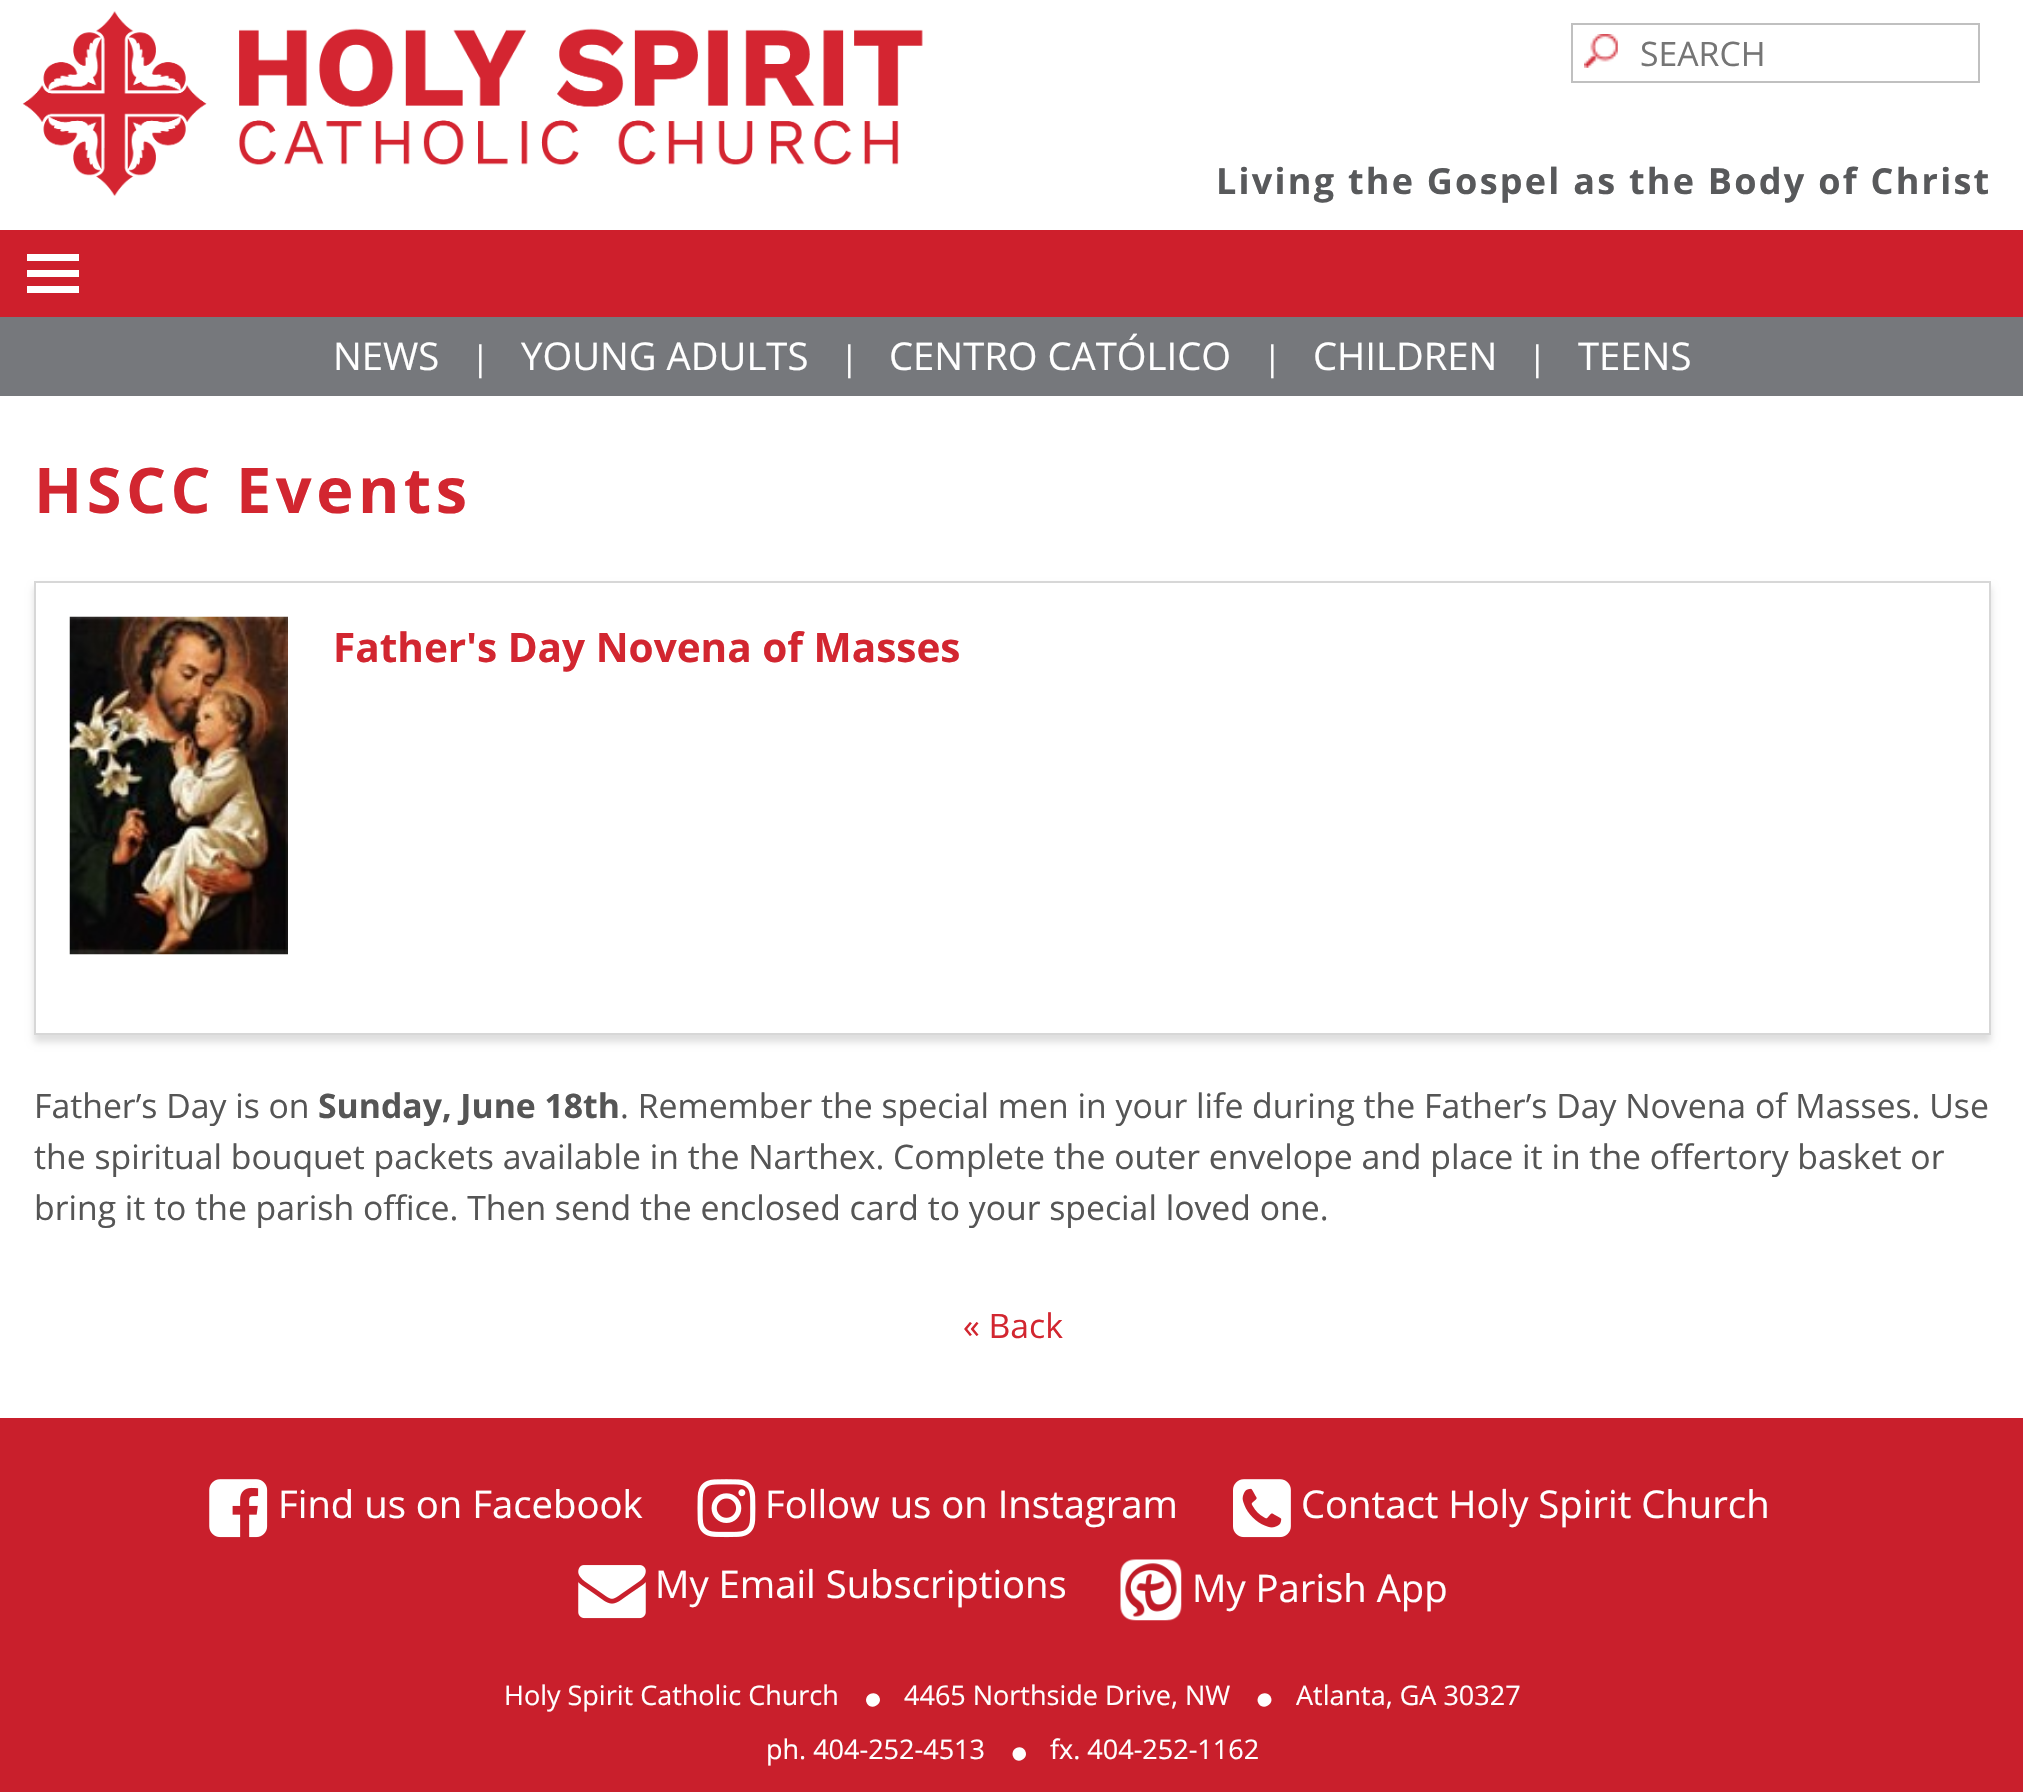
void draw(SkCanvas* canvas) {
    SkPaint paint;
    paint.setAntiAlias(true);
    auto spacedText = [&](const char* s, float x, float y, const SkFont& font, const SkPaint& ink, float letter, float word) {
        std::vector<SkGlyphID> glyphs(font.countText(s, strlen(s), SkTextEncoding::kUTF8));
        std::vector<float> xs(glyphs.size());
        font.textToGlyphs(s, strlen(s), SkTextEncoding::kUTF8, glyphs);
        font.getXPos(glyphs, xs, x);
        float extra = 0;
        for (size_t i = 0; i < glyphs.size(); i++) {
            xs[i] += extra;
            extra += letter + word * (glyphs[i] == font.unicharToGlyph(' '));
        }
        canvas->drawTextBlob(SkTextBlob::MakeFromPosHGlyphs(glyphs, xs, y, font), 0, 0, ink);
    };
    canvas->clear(0xFFFFFFFF);
    canvas->drawImageRect(SkImages::DeferredFromEncodedData(SkData::MakeFromFileName("img1.png")), SkRect::MakeXYWH(1584, 34, 34, 34), SkSamplingOptions());
    paint.setStyle(SkPaint::kStroke_Style);
    paint.setStrokeWidth(2);
    paint.setColor(0xFFC0C0C0);
    canvas->drawRect(SkRect::MakeXYWH(1572, 24, 407, 58), paint);
    SkFont font1(fontMgr->matchFamilyStyle("Open Sans", SkFontStyle::Normal()), 33.75f);
    font1.setSubpixel(true);
    paint.setStyle(SkPaint::kFill_Style);
    paint.setColor(0xFF757575);
    canvas->drawString("SEARCH", 1640, 66, font1, paint);
    canvas->drawImageRect(SkImages::DeferredFromEncodedData(SkData::MakeFromFileName("img2.png")), SkRect::MakeXYWH(22, 11, 901, 185), SkSamplingOptions());
    SkFont font2(fontMgr->matchFamilyStyle("Open Sans", SkFontStyle::Bold()), 36);
    font2.setSubpixel(true);
    paint.setColor(0xFF58595B);
    spacedText("Living the Gospel as the Body of Christ", 1216, 194, font2, paint, 2.25f, 0);
    paint.setColor(0xFFCE1F2C);
    canvas->drawRect(SkRect::MakeXYWH(0, 230, 2023, 87), paint);
    paint.setColor(0xFFFFFFFF);
    canvas->drawRect(SkRect::MakeXYWH(27, 270, 52, 7), paint);
    canvas->drawRect(SkRect::MakeXYWH(27, 254, 52, 7), paint);
    canvas->drawRect(SkRect::MakeXYWH(27, 286, 52, 7), paint);
    paint.setColor(0xFF76787C);
    canvas->drawRect(SkRect::MakeXYWH(0, 317, 2023, 79), paint);
    SkFont font3(fontMgr->matchFamilyStyle("Open Sans", SkFontStyle::Normal()), 38.25f);
    font3.setSubpixel(true);
    paint.setColor(0xFFFFFFFF);
    canvas->drawString("NEWS", 333, 370, font3, paint);
    canvas->drawString("|", 471, 370, font1, paint);
    canvas->drawString("YOUNG ADULTS", 521, 370, font3, paint);
    canvas->drawString("|", 840, 370, font1, paint);
    canvas->drawString("CENTRO CATÓLICO", 889, 370, font3, paint);
    canvas->drawString("|", 1263, 370, font1, paint);
    canvas->drawString("CHILDREN", 1313, 370, font3, paint);
    canvas->drawString("|", 1528, 370, font1, paint);
    canvas->drawString("TEENS", 1578, 370, font3, paint);
    SkFont font4(fontMgr->matchFamilyStyle("Open Sans", SkFontStyle::Bold()), 63);
    font4.setSubpixel(true);
    paint.setColor(0xFFD22630);
    spacedText("HSCC Events", 34, 513, font4, paint, 4.5f, 0);
    canvas->save();
    canvas->clipPath(SkPathBuilder(SkPathFillType::kEvenOdd).moveTo(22, 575).lineTo(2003, 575).lineTo(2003, 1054).lineTo(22, 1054).close().moveTo(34, 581).lineTo(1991, 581).lineTo(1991, 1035).lineTo(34, 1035).close().detach(), true);
    paint.setColor(0x21000000);
    paint.setMaskFilter(SkMaskFilter::MakeBlur(kNormal_SkBlurStyle, 3.5f));
    canvas->drawRect(SkRect::MakeXYWH(34, 587, 1957, 455), paint);
    paint.setMaskFilter(nullptr);
    canvas->restore();
    paint.setStyle(SkPaint::kStroke_Style);
    paint.setColor(0xFFD7D7D7);
    canvas->drawRect(SkRect::MakeXYWH(35, 582, 1955, 452), paint);
    canvas->drawImageRect(SkImages::DeferredFromEncodedData(SkData::MakeFromFileName("img3.png")), SkRect::MakeXYWH(69, 616, 219, 339), SkSamplingOptions());
    SkFont font5(fontMgr->matchFamilyStyle("Open Sans", SkFontStyle::Bold()), 40.5f);
    font5.setSubpixel(true);
    paint.setStyle(SkPaint::kFill_Style);
    paint.setColor(0xFFD22630);
    canvas->drawString("Father's Day Novena of Masses", 333, 662, font5, paint);
    paint.setColor(0xFF555555);
    canvas->drawString("Father’s Day is on", 34, 1118, font1, paint);
    SkFont font6(fontMgr->matchFamilyStyle("Open Sans", SkFontStyle::Bold()), 33.75f);
    font6.setSubpixel(true);
    canvas->drawString("Sunday, June 18th", 318, 1118, font6, paint);
    canvas->drawString(". Remember the special men in your life during the Father’s Day Novena of Masses. Use", 620, 1118, font1, paint);
    canvas->drawString("the spiritual bouquet packets available in the Narthex. Complete the outer envelope and place it in the offertory basket or", 34, 1169, font1, paint);
    canvas->drawString("bring it to the parish office. Then send the enclosed card to your special loved one.", 34, 1220, font1, paint);
    paint.setColor(0xFFD22630);
    canvas->drawString("« Back", 963, 1338, font1, paint);
    paint.setColor(0xFFC91F2C);
    canvas->drawRect(SkRect::MakeXYWH(0, 1418, 2023, 374), paint);
    canvas->drawImageRect(SkImages::DeferredFromEncodedData(SkData::MakeFromFileName("img4.png")), SkRect::MakeXYWH(209, 1479, 59, 59), SkSamplingOptions());
    paint.setColor(0xFFFFFFFF);
    canvas->drawString("Find us on Facebook", 278, 1518, font3, paint);
    canvas->drawImageRect(SkImages::DeferredFromEncodedData(SkData::MakeFromFileName("img5.png")), SkRect::MakeXYWH(697, 1479, 59, 59), SkSamplingOptions());
    canvas->drawString("Follow us on Instagram", 765, 1518, font3, paint);
    canvas->drawImageRect(SkImages::DeferredFromEncodedData(SkData::MakeFromFileName("img6.png")), SkRect::MakeXYWH(1233, 1479, 58, 59), SkSamplingOptions());
    canvas->drawString("Contact Holy Spirit Church", 1301, 1518, font3, paint);
    canvas->drawImageRect(SkImages::DeferredFromEncodedData(SkData::MakeFromFileName("img7.png")), SkRect::MakeXYWH(578, 1565, 68, 54), SkSamplingOptions());
    canvas->drawString("My Email Subscriptions", 655, 1598, font3, paint);
    canvas->drawImageRect(SkImages::DeferredFromEncodedData(SkData::MakeFromFileName("img8.png")), SkRect::MakeXYWH(1120, 1559, 62, 62), SkSamplingOptions());
    canvas->drawString("My Parish App", 1192, 1602, font3, paint);
    SkFont font7(fontMgr->matchFamilyStyle("Open Sans", SkFontStyle::Normal()), 27);
    font7.setSubpixel(true);
    canvas->drawString("Holy Spirit Catholic Church", 504, 1705, font7, paint);
    canvas->drawPath(SkPathBuilder().moveTo(879, 1696.5f).cubicTo(883.5f, 1704, 871.5f, 1711, 867, 1703.5f).cubicTo(862.5f, 1695.5f, 874.5f, 1689, 879, 1696.5f).close().detach(), paint);
    canvas->drawString("4465 Northside Drive, NW", 904, 1705, font7, paint);
    canvas->drawPath(SkPathBuilder().moveTo(1270.5f, 1696.5f).cubicTo(1275, 1704, 1263, 1711, 1258.5f, 1703.5f).cubicTo(1254, 1695.5f, 1266, 1689, 1270.5f, 1696.5f).close().detach(), paint);
    canvas->drawString("Atlanta, GA 30327", 1296, 1705, font7, paint);
    canvas->drawString("ph. 404-252-4513", 766, 1759, font7, paint);
    canvas->drawPath(SkPathBuilder().moveTo(1025, 1750.5f).cubicTo(1029.5f, 1758, 1018, 1765, 1013.5f, 1757.5f).cubicTo(1009, 1749.5f, 1020.5f, 1743, 1025, 1750.5f).close().detach(), paint);
    canvas->drawString("fx. 404-252-1162", 1050, 1759, font7, paint);
}
